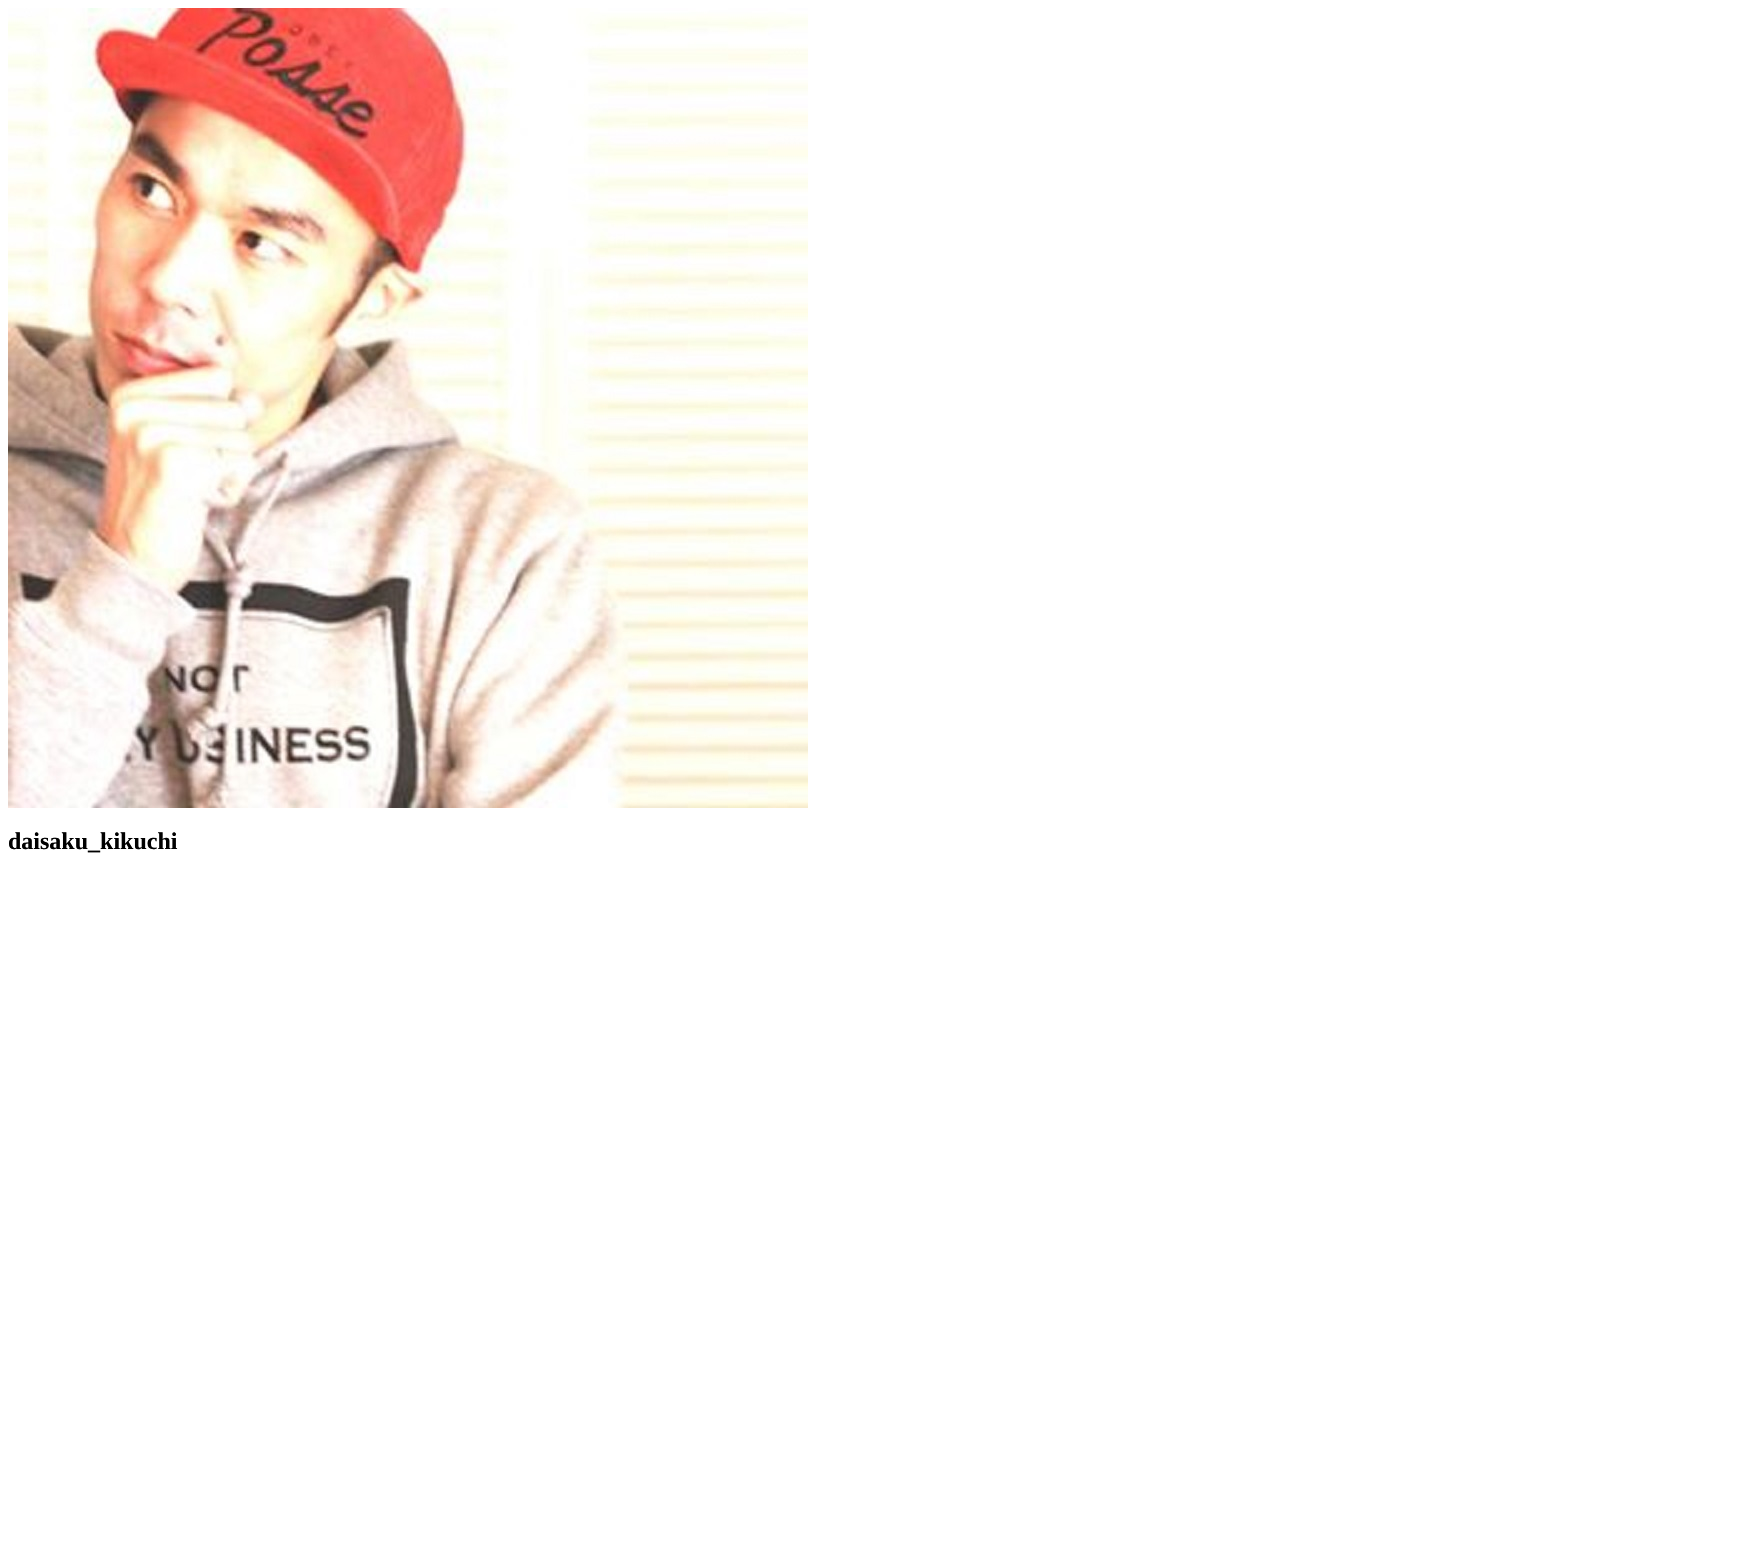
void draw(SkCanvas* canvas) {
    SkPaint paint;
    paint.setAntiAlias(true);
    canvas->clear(0xFFFFFFFF);
    canvas->drawImageRect(SkImages::DeferredFromEncodedData(SkData::MakeFromFileName("img1.png")), SkRect::MakeXYWH(8, 8, 800, 800), SkSamplingOptions());
    SkFont font1(fontMgr->matchFamilyStyle("Liberation Serif", SkFontStyle::Bold()), 24);
    font1.setSubpixel(true);
    paint.setColor(0xFF000000);
    canvas->drawString("daisaku_kikuchi", 8, 849, font1, paint);
}
